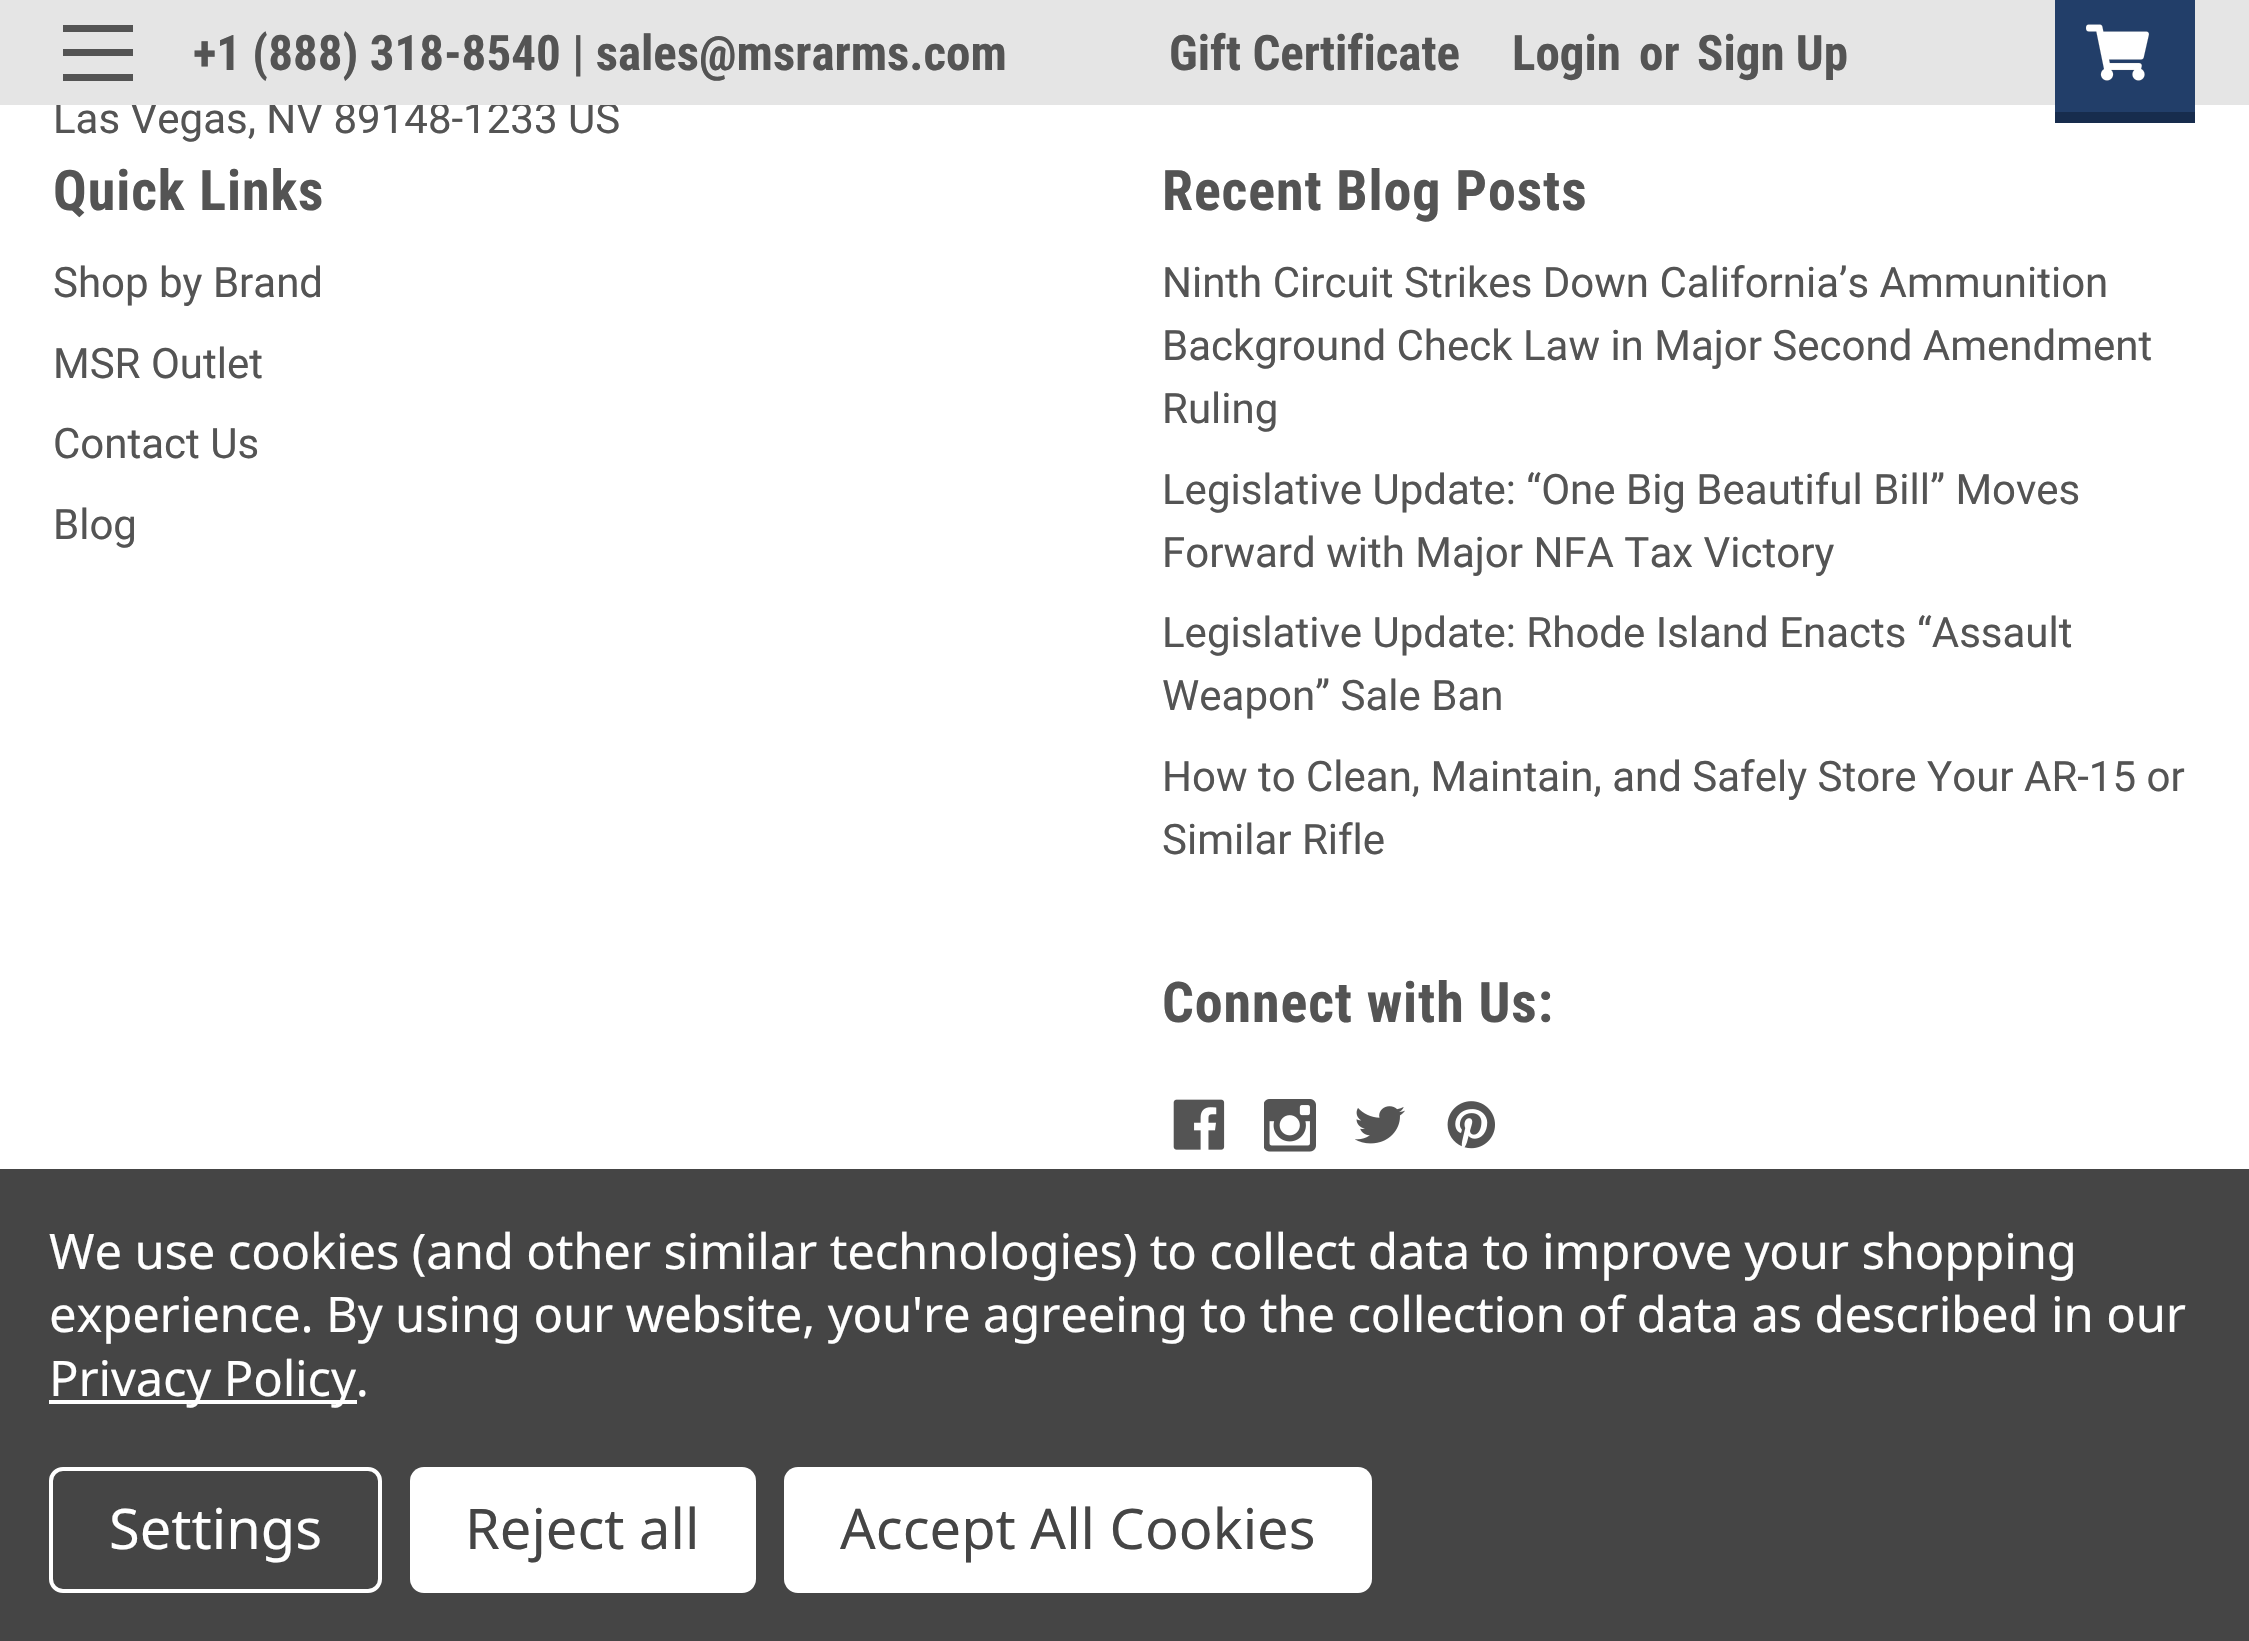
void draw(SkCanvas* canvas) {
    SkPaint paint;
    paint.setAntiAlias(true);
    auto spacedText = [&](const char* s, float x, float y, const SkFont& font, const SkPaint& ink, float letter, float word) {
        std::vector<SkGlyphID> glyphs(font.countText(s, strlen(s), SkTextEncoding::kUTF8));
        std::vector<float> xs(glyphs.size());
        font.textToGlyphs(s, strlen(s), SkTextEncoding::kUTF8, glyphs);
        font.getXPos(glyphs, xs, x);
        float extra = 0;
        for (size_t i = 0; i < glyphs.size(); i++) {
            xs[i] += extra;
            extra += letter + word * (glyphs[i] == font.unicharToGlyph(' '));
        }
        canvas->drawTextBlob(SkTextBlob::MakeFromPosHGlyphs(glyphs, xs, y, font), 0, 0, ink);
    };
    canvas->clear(0xFFFFFFFF);
    SkFont font1(fontMgr->matchFamilyStyle("Roboto", SkFontStyle::Normal()), 42);
    font1.setSubpixel(true);
    paint.setColor(0xFF545454);
    canvas->drawString("Las Vegas, NV 89148-1233 US", 53, 133, font1, paint);
    paint.setColor(0xFFE5E5E5);
    canvas->drawRect(SkRect::MakeXYWH(0, 0, 2249, 105), paint);
    paint.setColor(0xFF545454);
    canvas->drawRect(SkRect::MakeXYWH(63, 49, 70, 7), paint);
    canvas->drawRect(SkRect::MakeXYWH(63, 25, 70, 7), paint);
    canvas->drawRect(SkRect::MakeXYWH(63, 74, 70, 7), paint);
    SkFont font2(fontMgr->matchFamilyStyle("Roboto Condensed", SkFontStyle::Bold()), 49);
    font2.setSubpixel(true);
    canvas->drawString("+1 (888) 318-8540 | sales@msrarms.com", 193, 70, font2, paint);
    canvas->drawString("Gift Certificate", 1169, 70, font2, paint);
    canvas->drawString("Login", 1512, 70, font2, paint);
    canvas->drawString("or", 1639, 70, font2, paint);
    canvas->drawString("Sign Up", 1697, 70, font2, paint);
    paint.setColor(0xFF223E69);
    canvas->drawRect(SkRect::MakeXYWH(2055, 0, 140, 112), paint);
    paint.setColor(0xFF172C4D);
    canvas->drawRect(SkRect::MakeXYWH(2055, 112, 140, 11), paint);
    canvas->drawImageRect(SkImages::DeferredFromEncodedData(SkData::MakeFromFileName("img1.png")), SkRect::MakeXYWH(2086, 24, 63, 57), SkSamplingOptions());
    SkFont font3(fontMgr->matchFamilyStyle("Roboto Condensed", SkFontStyle::Bold()), 56);
    font3.setSubpixel(true);
    paint.setColor(0xFF545454);
    spacedText("Quick Links", 53, 210, font3, paint, 0.9f, 0);
    canvas->drawString("Shop by Brand", 53, 297, font1, paint);
    canvas->drawString("MSR Outlet", 53, 378, font1, paint);
    canvas->drawString("Contact Us", 53, 458, font1, paint);
    canvas->drawString("Blog", 53, 539, font1, paint);
    spacedText("Recent Blog Posts", 1162, 210, font3, paint, 0.9f, 0);
    canvas->drawString("Ninth Circuit Strikes Down California’s Ammunition", 1162, 297, font1, paint);
    canvas->drawString("Background Check Law in Major Second Amendment", 1162, 360, font1, paint);
    canvas->drawString("Ruling", 1162, 423, font1, paint);
    canvas->drawString("Legislative Update: “One Big Beautiful Bill” Moves", 1162, 504, font1, paint);
    canvas->drawString("Forward with Major NFA Tax Victory", 1162, 567, font1, paint);
    canvas->drawString("Legislative Update: Rhode Island Enacts “Assault", 1162, 647, font1, paint);
    canvas->drawString("Weapon” Sale Ban", 1162, 710, font1, paint);
    canvas->drawString("How to Clean, Maintain, and Safely Store Your AR-15 or", 1162, 791, font1, paint);
    canvas->drawString("Similar Rifle", 1162, 854, font1, paint);
    spacedText("Connect with Us:", 1162, 1022, font3, paint, 0.9f, 0);
    canvas->drawImageRect(SkImages::DeferredFromEncodedData(SkData::MakeFromFileName("img2.png")), SkRect::MakeXYWH(1173, 1099, 52, 51), SkSamplingOptions());
    canvas->drawImageRect(SkImages::DeferredFromEncodedData(SkData::MakeFromFileName("img3.png")), SkRect::MakeXYWH(1264, 1099, 52, 53), SkSamplingOptions());
    canvas->drawImageRect(SkImages::DeferredFromEncodedData(SkData::MakeFromFileName("img4.png")), SkRect::MakeXYWH(1355, 1106, 50, 38), SkSamplingOptions());
    canvas->drawImageRect(SkImages::DeferredFromEncodedData(SkData::MakeFromFileName("img5.png")), SkRect::MakeXYWH(1447, 1101, 48, 48), SkSamplingOptions());
    paint.setColor(0xFF454545);
    canvas->drawRect(SkRect::MakeXYWH(0, 1169, 2249, 472), paint);
    SkFont font4(fontMgr->matchFamilyStyle("Noto Sans", SkFontStyle::Normal()), 49);
    font4.setSubpixel(true);
    paint.setColor(0xFFFFFFFF);
    spacedText("We use cookies (and other similar technologies) to collect data to improve your shopping", 49, 1269, font4, paint, -0.18f, 0);
    spacedText("experience. By using our website, you're agreeing to the collection of data as described in our", 49, 1332, font4, paint, -0.18f, 0);
    canvas->drawRect(SkRect::MakeXYWH(49, 1400, 308, 4), paint);
    spacedText("Privacy Policy.", 49, 1396, font4, paint, -0.18f, 0);
    paint.setStyle(SkPaint::kStroke_Style);
    paint.setStrokeWidth(4);
    canvas->drawRoundRect(SkRect::MakeXYWH(51, 1469, 329, 122), 12, 12, paint);
    SkFont font5(fontMgr->matchFamilyStyle("Noto Sans", SkFontStyle::Normal()), 56);
    font5.setSubpixel(true);
    paint.setStyle(SkPaint::kFill_Style);
    canvas->drawString("Settings", 109, 1549, font5, paint);
    canvas->drawRoundRect(SkRect::MakeXYWH(410, 1467, 346, 126), 14, 14, paint);
    paint.setColor(0xFF454545);
    canvas->drawString("Reject all", 465, 1549, font5, paint);
    paint.setColor(0xFFFFFFFF);
    canvas->drawRoundRect(SkRect::MakeXYWH(784, 1467, 588, 126), 14, 14, paint);
    paint.setColor(0xFF454545);
    canvas->drawString("Accept All Cookies", 840, 1549, font5, paint);
}
